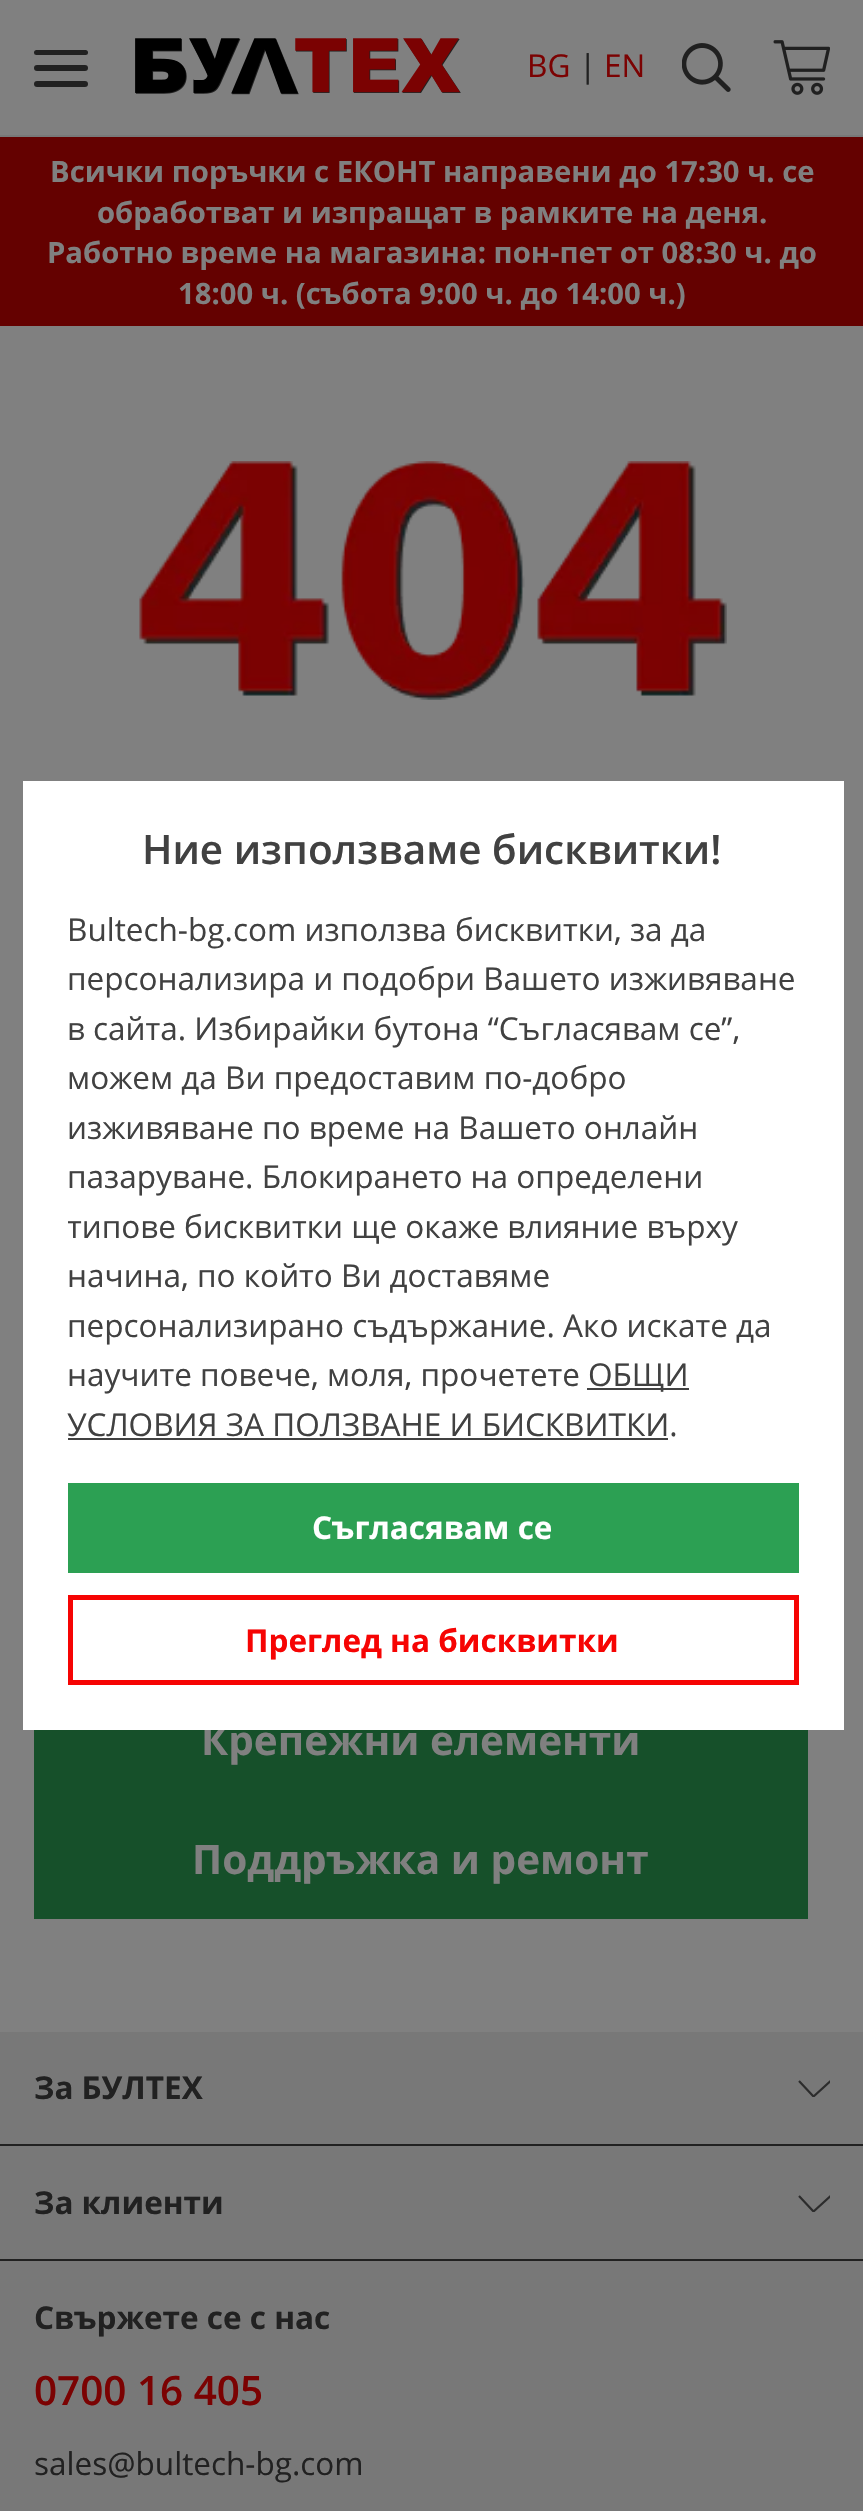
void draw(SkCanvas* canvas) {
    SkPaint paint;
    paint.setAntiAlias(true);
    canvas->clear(0xFF808080);
    paint.setColor(0xFF787878);
    canvas->drawRect(SkRect::MakeXYWH(0, 135, 863, 2), paint);
    paint.setColor(0xFF212121);
    canvas->drawRoundRect(SkRect::MakeXYWH(34, 50, 54, 5), 2.5f, 2.5f, paint);
    canvas->drawRoundRect(SkRect::MakeXYWH(34, 65, 54, 6), 3, 3, paint);
    canvas->drawRoundRect(SkRect::MakeXYWH(34, 81, 54, 6), 3, 3, paint);
    canvas->drawImageRect(SkImages::DeferredFromEncodedData(SkData::MakeFromFileName("img1.png")), SkRect::MakeXYWH(135, 38, 326, 57), SkSamplingOptions());
    SkFont font1(fontMgr->matchFamilyStyle("Open Sans", SkFontStyle::Normal()), 31.5f);
    font1.setSubpixel(true);
    paint.setColor(0xFF7B0202);
    canvas->drawString("BG", 527, 77, font1, paint);
    paint.setColor(0xFF212121);
    canvas->drawString("|", 579, 77, font1, paint);
    paint.setColor(0xFF7B0202);
    canvas->drawString("EN", 604, 77, font1, paint);
    canvas->drawImageRect(SkImages::DeferredFromEncodedData(SkData::MakeFromFileName("img2.png")), SkRect::MakeXYWH(682, 43, 49, 49), SkSamplingOptions());
    canvas->drawImageRect(SkImages::DeferredFromEncodedData(SkData::MakeFromFileName("img3.png")), SkRect::MakeXYWH(773, 40, 57, 55), SkSamplingOptions());
    paint.setColor(0xFF640100);
    canvas->drawRect(SkRect::MakeXYWH(0, 137, 863, 189), paint);
    SkFont font2(fontMgr->matchFamilyStyle("Open Sans", SkFontStyle::Bold()), 29.25f);
    font2.setSubpixel(true);
    paint.setColor(0xFF808080);
    canvas->drawString("Всички поръчки с ЕКОНТ направени до 17:30 ч. се", 50, 182, font2, paint);
    canvas->drawString("обработват и изпращат в рамките на деня.", 97, 223, font2, paint);
    canvas->drawString("Работно време на магазина: пон-пет от 08:30 ч. до", 47, 263, font2, paint);
    canvas->drawString("18:00 ч. (събота 9:00 ч. до 14:00 ч.)", 178, 304, font2, paint);
    canvas->drawImageRect(SkImages::DeferredFromEncodedData(SkData::MakeFromFileName("img4.png")), SkRect::MakeXYWH(139, 461, 588, 239), SkSamplingOptions());
    paint.setColor(0xFF16502A);
    canvas->drawRect(SkRect::MakeXYWH(34, 1730, 774, 189), paint);
    SkFont font3(fontMgr->matchFamilyStyle("Open Sans", SkFontStyle::Bold()), 40.5f);
    font3.setSubpixel(true);
    paint.setColor(0xFF808080);
    canvas->drawString("Крепежни елементи", 201, 1755, font3, paint);
    canvas->drawString("Поддръжка и ремонт", 192, 1874, font3, paint);
    paint.setColor(0xFF787878);
    canvas->drawRect(SkRect::MakeXYWH(0, 2032, 863, 479), paint);
    paint.setColor(0xFF212121);
    canvas->drawRect(SkRect::MakeXYWH(0, 2144, 863, 2), paint);
    SkFont font4(fontMgr->matchFamilyStyle("Open Sans", SkFontStyle::Bold()), 31.5f);
    font4.setSubpixel(true);
    canvas->drawString("За БУЛТЕХ", 34, 2099, font4, paint);
    canvas->save();
    canvas->clipRect(SkRect::MakeXYWH(797, 2079, 33, 18));
    paint.setStyle(SkPaint::kStroke_Style);
    paint.setStrokeWidth(2.2f);
    paint.setColor(0xFF2C2C2C);
    canvas->drawPath(SkPathBuilder().moveTo(799, 2081).lineTo(813.5f, 2096.5f).lineTo(830.5f, 2081).detach(), paint);
    canvas->restore();
    paint.setStyle(SkPaint::kFill_Style);
    paint.setColor(0xFF212121);
    canvas->drawRect(SkRect::MakeXYWH(0, 2259, 863, 2), paint);
    canvas->drawString("За клиенти", 34, 2214, font4, paint);
    canvas->save();
    canvas->clipRect(SkRect::MakeXYWH(797, 2194, 33, 18));
    paint.setStyle(SkPaint::kStroke_Style);
    paint.setColor(0xFF2C2C2C);
    canvas->drawPath(SkPathBuilder().moveTo(799, 2196).lineTo(813.5f, 2211.5f).lineTo(830.5f, 2196).detach(), paint);
    canvas->restore();
    paint.setStyle(SkPaint::kFill_Style);
    paint.setColor(0xFF212121);
    canvas->drawString("Свържете се с нас", 34, 2329, font4, paint);
    SkFont font5(fontMgr->matchFamilyStyle("Open Sans", SkFontStyle(600, SkFontStyle::kNormal_Width, SkFontStyle::kUpright_Slant)), 40.5f);
    font5.setSubpixel(true);
    paint.setColor(0xFF7B0202);
    canvas->drawString("0700 16 405", 34, 2405, font5, paint);
    paint.setColor(0xFF212121);
    canvas->drawString("sales@bultech-bg.com", 34, 2475, font1, paint);
    paint.setColor(0xFFFFFFFF);
    canvas->drawRect(SkRect::MakeXYWH(23, 781, 821, 949), paint);
    paint.setColor(0xFF414141);
    canvas->drawString("Ние използваме бисквитки!", 142, 864, font5, paint);
    canvas->drawString("Bultech-bg.com използва бисквитки, за да", 67, 941, font1, paint);
    canvas->drawString("персонализира и подобри Вашето изживяване", 67, 990, font1, paint);
    canvas->drawString("в сайта. Избирайки бутона “Съгласявам се”,", 67, 1040, font1, paint);
    canvas->drawString("можем да Ви предоставим по-добро", 67, 1089, font1, paint);
    canvas->drawString("изживяване по време на Вашето онлайн", 67, 1139, font1, paint);
    canvas->drawString("пазаруване. Блокирането на определени", 67, 1188, font1, paint);
    canvas->save();
    canvas->clipRect(SkRect::MakeXYWH(68, 826, 731, 623));
    canvas->drawString("типове бисквитки ще окаже влияние върху", 67, 1238, font1, paint);
    canvas->restore();
    canvas->drawString("начина, по който Ви доставяме", 67, 1287, font1, paint);
    canvas->drawString("персонализирано съдържание. Ако искате да", 67, 1337, font1, paint);
    canvas->drawString("научите повече, моля, прочетете", 67, 1386, font1, paint);
    canvas->drawRect(SkRect::MakeXYWH(587, 1388, 102, 2), paint);
    canvas->drawString("ОБЩИ", 588, 1386, font1, paint);
    canvas->drawString("УСЛОВИЯ ЗА ПОЛЗВАНЕ И БИСКВИТКИ.", 67, 1436, font1, paint);
    canvas->drawRect(SkRect::MakeXYWH(68, 1438, 600, 2), paint);
    paint.setColor(0xFF2CA053);
    canvas->drawRect(SkRect::MakeXYWH(68, 1483, 731, 90), paint);
    paint.setColor(0xFFFFFFFF);
    canvas->drawString("Съгласявам се", 312, 1539, font4, paint);
    paint.setStyle(SkPaint::kStroke_Style);
    paint.setStrokeWidth(5);
    paint.setColor(0xFFF60403);
    canvas->drawRect(SkRect::MakeXYWH(70.5f, 1597.5f, 726, 85), paint);
    paint.setStyle(SkPaint::kFill_Style);
    canvas->drawString("Преглед на бисквитки", 245, 1652, font4, paint);
}
